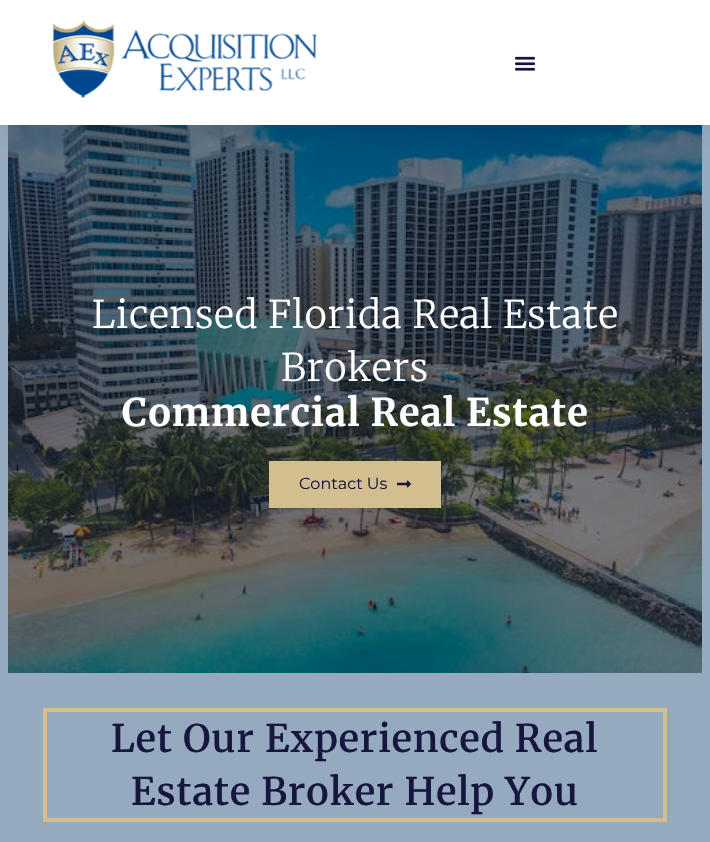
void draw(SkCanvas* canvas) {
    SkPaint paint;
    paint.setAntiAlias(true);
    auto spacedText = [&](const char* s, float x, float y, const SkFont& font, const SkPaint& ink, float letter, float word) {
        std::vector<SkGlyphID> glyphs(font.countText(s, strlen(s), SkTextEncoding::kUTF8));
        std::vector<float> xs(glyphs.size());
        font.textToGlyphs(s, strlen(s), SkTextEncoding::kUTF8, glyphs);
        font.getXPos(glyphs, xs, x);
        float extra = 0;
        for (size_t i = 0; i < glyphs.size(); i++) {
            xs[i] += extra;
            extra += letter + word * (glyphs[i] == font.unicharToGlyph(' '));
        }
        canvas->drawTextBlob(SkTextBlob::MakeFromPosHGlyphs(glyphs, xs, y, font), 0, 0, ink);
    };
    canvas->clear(0xFF95AABF);
    canvas->drawImageRect(SkImages::DeferredFromEncodedData(SkData::MakeFromFileName("img3.png")), SkRect::MakeXYWH(8, 125, 694, 548), SkSamplingOptions());
    paint.setColor(0x1A000000);
    paint.setMaskFilter(SkMaskFilter::MakeBlur(kNormal_SkBlurStyle, 15));
    canvas->drawRect(SkRect::MakeXYWH(0, 5, 710, 125), paint);
    paint.setMaskFilter(nullptr);
    paint.setColor(0xFFFFFFFF);
    canvas->drawRect(SkRect::MakeXYWH(0, 0, 710, 125), paint);
    canvas->drawImageRect(SkImages::DeferredFromEncodedData(SkData::MakeFromFileName("img1.png")), SkRect::MakeXYWH(53, 20, 264, 78), SkSamplingOptions());
    canvas->drawImageRect(SkImages::DeferredFromEncodedData(SkData::MakeFromFileName("img2.png")), SkRect::MakeXYWH(514, 56, 22, 15), SkSamplingOptions());
    SkFont font1(fontMgr->matchFamilyStyle("Merriweather", SkFontStyle(300, SkFontStyle::kNormal_Width, SkFontStyle::kUpright_Slant)), 38);
    font1.setSubpixel(true);
    spacedText("Licensed Florida Real Estate", 92, 328, font1, paint, 1, 0);
    spacedText("Brokers", 281, 381, font1, paint, 1, 0);
    SkFont font2(fontMgr->matchFamilyStyle("Merriweather", SkFontStyle::Bold()), 38);
    font2.setSubpixel(true);
    spacedText("Commercial Real Estate", 122, 426, font2, paint, 1, 0);
    paint.setColor(0xFFD3BE90);
    canvas->drawRect(SkRect::MakeXYWH(269, 461, 172, 47), paint);
    SkFont font3(fontMgr->matchFamilyStyle("Montserrat", SkFontStyle::Normal()), 16);
    font3.setSubpixel(true);
    paint.setColor(0xFF16163F);
    canvas->drawString("Contact Us", 299, 489, font3, paint);
    canvas->drawImageRect(SkImages::DeferredFromEncodedData(SkData::MakeFromFileName("img4.png")), SkRect::MakeXYWH(397, 480, 14, 8), SkSamplingOptions());
    paint.setStyle(SkPaint::kStroke_Style);
    paint.setStrokeWidth(4);
    paint.setColor(0xFFD3BE90);
    canvas->drawRect(SkRect::MakeXYWH(45, 710, 620, 110), paint);
    SkFont font4(fontMgr->matchFamilyStyle("Merriweather", SkFontStyle(600, SkFontStyle::kNormal_Width, SkFontStyle::kUpright_Slant)), 38);
    font4.setSubpixel(true);
    paint.setStyle(SkPaint::kFill_Style);
    paint.setColor(0xFF16163F);
    spacedText("Let Our Experienced Real", 111, 752, font4, paint, 1, 0);
    spacedText("Estate Broker Help You", 131, 805, font4, paint, 1, 0);
}
